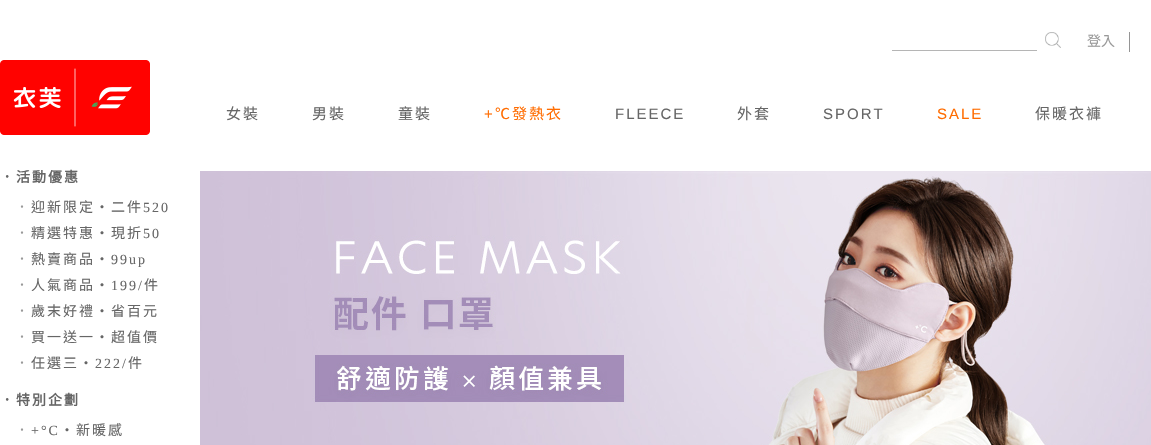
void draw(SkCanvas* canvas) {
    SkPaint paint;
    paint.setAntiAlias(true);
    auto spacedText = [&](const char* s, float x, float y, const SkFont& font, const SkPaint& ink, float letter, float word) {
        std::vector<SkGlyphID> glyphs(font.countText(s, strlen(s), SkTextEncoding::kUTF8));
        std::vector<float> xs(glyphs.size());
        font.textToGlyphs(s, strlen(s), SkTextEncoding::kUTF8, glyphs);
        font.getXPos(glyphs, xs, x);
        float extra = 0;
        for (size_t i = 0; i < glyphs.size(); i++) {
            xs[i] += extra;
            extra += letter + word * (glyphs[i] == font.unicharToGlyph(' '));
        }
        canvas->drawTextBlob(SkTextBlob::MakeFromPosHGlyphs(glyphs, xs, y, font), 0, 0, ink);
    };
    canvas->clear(0xFFFFFFFF);
    canvas->drawImageRect(SkImages::DeferredFromEncodedData(SkData::MakeFromFileName("img1.png")), SkRect::MakeXYWH(1045, 32, 16, 16), SkSamplingOptions());
    paint.setColor(0xFFB5B5B5);
    canvas->drawRect(SkRect::MakeXYWH(892, 50, 145, 1), paint);
    paint.setColor(0xFF959595);
    canvas->drawRect(SkRect::MakeXYWH(1129, 32, 1, 20), paint);
    SkFont font1(fontMgr->matchFamilyStyle("Noto Sans CJK TC", SkFontStyle::Normal()), 14);
    font1.setSubpixel(true);
    paint.setColor(0xFF999999);
    canvas->drawString("登入", 1087, 46, font1, paint);
    canvas->drawImageRect(SkImages::DeferredFromEncodedData(SkData::MakeFromFileName("img2.png")), SkRect::MakeXYWH(0, 60, 150, 75), SkSamplingOptions());
    SkFont font2(fontMgr->matchFamilyStyle("Noto Sans CJK TC", SkFontStyle::Normal()), 15);
    font2.setSubpixel(true);
    paint.setColor(0xFF666666);
    spacedText("女裝", 226, 119, font2, paint, 2, 0);
    spacedText("男裝", 312, 119, font2, paint, 2, 0);
    spacedText("童裝", 398, 119, font2, paint, 2, 0);
    SkFont font3(fontMgr->matchFamilyStyle("Liberation Sans", SkFontStyle::Normal()), 15);
    font3.setSubpixel(true);
    paint.setColor(0xFFFF6C00);
    spacedText("+", 484, 119, font3, paint, 2, 0);
    spacedText("℃發熱衣", 495, 119, font2, paint, 2, 0);
    paint.setColor(0xFF666666);
    spacedText("FLEECE", 615, 119, font3, paint, 2, 0);
    spacedText("外套", 737, 119, font2, paint, 2, 0);
    spacedText("SPORT", 823, 119, font3, paint, 2, 0);
    paint.setColor(0xFFFF6C00);
    spacedText("SALE", 937, 119, font3, paint, 2, 0);
    paint.setColor(0xFF666666);
    spacedText("保暖衣褲", 1035, 119, font2, paint, 2, 0);
    SkFont font4(fontMgr->matchFamilyStyle("Noto Sans CJK TC", SkFontStyle::Bold()), 14);
    font4.setSubpixel(true);
    spacedText("．活動優惠", 0, 182, font4, paint, 2, 0);
    paint.setColor(0xFF999999);
    spacedText("．", 15, 212, font1, paint, 2, 0);
    paint.setColor(0xFF666666);
    spacedText("迎新限定‧二件", 31, 212, font1, paint, 2, 0);
    SkFont font5(fontMgr->matchFamilyStyle("Liberation Serif", SkFontStyle::Normal()), 14);
    font5.setSubpixel(true);
    spacedText("520", 143, 212, font5, paint, 2, 0);
    paint.setColor(0xFF999999);
    spacedText("．", 15, 238, font1, paint, 2, 0);
    paint.setColor(0xFF666666);
    spacedText("精選特惠‧現折", 31, 238, font1, paint, 2, 0);
    spacedText("50", 143, 238, font5, paint, 2, 0);
    paint.setColor(0xFF999999);
    spacedText("．", 15, 264, font1, paint, 2, 0);
    paint.setColor(0xFF666666);
    spacedText("熱賣商品‧", 31, 264, font1, paint, 2, 0);
    spacedText("99up", 111, 264, font5, paint, 2, 0);
    paint.setColor(0xFF999999);
    spacedText("．", 15, 290, font1, paint, 2, 0);
    paint.setColor(0xFF666666);
    spacedText("人氣商品‧", 31, 290, font1, paint, 2, 0);
    spacedText("199/", 111, 290, font5, paint, 2, 0);
    spacedText("件", 144, 290, font1, paint, 2, 0);
    paint.setColor(0xFF999999);
    spacedText("．", 15, 316, font1, paint, 2, 0);
    paint.setColor(0xFF666666);
    spacedText("歲末好禮‧省百元", 31, 316, font1, paint, 2, 0);
    paint.setColor(0xFF999999);
    spacedText("．", 15, 342, font1, paint, 2, 0);
    paint.setColor(0xFF666666);
    spacedText("買一送一‧超值價", 31, 342, font1, paint, 2, 0);
    paint.setColor(0xFF999999);
    spacedText("．", 15, 368, font1, paint, 2, 0);
    paint.setColor(0xFF666666);
    spacedText("任選三‧", 31, 368, font1, paint, 2, 0);
    spacedText("222/", 95, 368, font5, paint, 2, 0);
    spacedText("件", 128, 368, font1, paint, 2, 0);
    spacedText("．特別企劃", 0, 405, font4, paint, 2, 0);
    paint.setColor(0xFF999999);
    spacedText("．", 15, 435, font1, paint, 2, 0);
    paint.setColor(0xFF666666);
    spacedText("+°C", 31, 435, font5, paint, 2, 0);
    spacedText("‧新暖感", 60, 435, font1, paint, 2, 0);
    canvas->drawImageRect(SkImages::DeferredFromEncodedData(SkData::MakeFromFileName("img3.png")), SkRect::MakeXYWH(200, 171, 951, 274), SkSamplingOptions());
}
